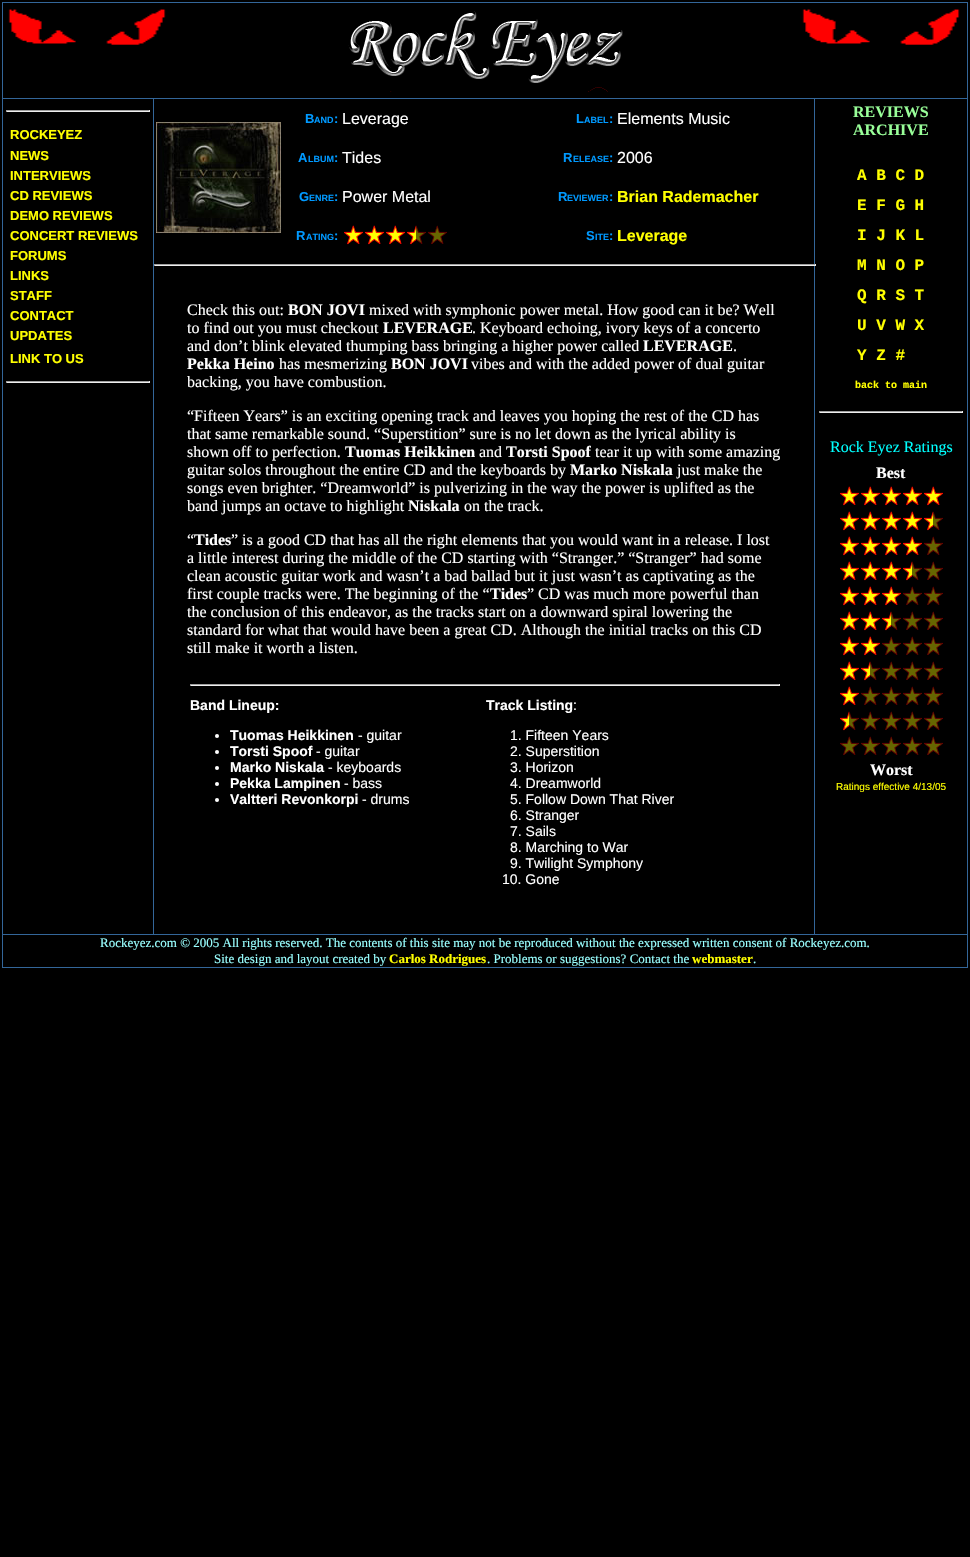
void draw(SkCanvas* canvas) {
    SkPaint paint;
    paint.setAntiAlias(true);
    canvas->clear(0xFF000000);
    paint.setColor(0xFF336699);
    canvas->drawRect(SkRect::MakeXYWH(2, 2, 966, 966), paint);
    paint.setColor(0xFF000000);
    canvas->drawRect(SkRect::MakeXYWH(3, 3, 964, 95), paint);
    canvas->drawImageRect(SkImages::DeferredFromEncodedData(SkData::MakeFromFileName("img1.png")), SkRect::MakeXYWH(8, 9, 158, 36), SkSamplingOptions());
    canvas->drawImageRect(SkImages::DeferredFromEncodedData(SkData::MakeFromFileName("img2.png")), SkRect::MakeXYWH(348, 11, 275, 81), SkSamplingOptions());
    canvas->drawImageRect(SkImages::DeferredFromEncodedData(SkData::MakeFromFileName("img1.png")), SkRect::MakeXYWH(802, 9, 158, 36), SkSamplingOptions());
    canvas->drawRect(SkRect::MakeXYWH(3, 99, 150, 835), paint);
    paint.setColor(0xFF9F9F9F);
    canvas->drawRect(SkRect::MakeXYWH(6, 110, 144, 1), paint);
    paint.setColor(0xFFEEEEEE);
    canvas->drawRect(SkRect::MakeXYWH(149, 110, 1, 2), paint);
    canvas->drawRect(SkRect::MakeXYWH(6, 111, 144, 1), paint);
    paint.setColor(0xFF9F9F9F);
    canvas->drawRect(SkRect::MakeXYWH(6, 110, 1, 2), paint);
    SkFont font1(fontMgr->matchFamilyStyle("Liberation Sans", SkFontStyle::Bold()), 13);
    font1.setSubpixel(true);
    paint.setColor(0xFFFFFF00);
    canvas->drawString("ROCKEYEZ", 10, 139, font1, paint);
    canvas->drawString("NEWS", 10, 160, font1, paint);
    canvas->drawString("INTERVIEWS", 10, 180, font1, paint);
    canvas->drawString("CD REVIEWS", 10, 200, font1, paint);
    canvas->drawString("DEMO REVIEWS", 10, 220, font1, paint);
    canvas->drawString("CONCERT REVIEWS", 10, 240, font1, paint);
    canvas->drawString("FORUMS", 10, 260, font1, paint);
    canvas->drawString("LINKS", 10, 280, font1, paint);
    canvas->drawString("STAFF", 10, 300, font1, paint);
    canvas->drawString("CONTACT", 10, 320, font1, paint);
    canvas->drawString("UPDATES", 10, 340, font1, paint);
    canvas->drawString("LINK TO US", 10, 363, font1, paint);
    paint.setColor(0xFF9F9F9F);
    canvas->drawRect(SkRect::MakeXYWH(6, 381, 144, 1), paint);
    paint.setColor(0xFFEEEEEE);
    canvas->drawRect(SkRect::MakeXYWH(149, 381, 1, 2), paint);
    canvas->drawRect(SkRect::MakeXYWH(6, 382, 144, 1), paint);
    paint.setColor(0xFF9F9F9F);
    canvas->drawRect(SkRect::MakeXYWH(6, 381, 1, 2), paint);
    paint.setColor(0xFF000000);
    canvas->drawRect(SkRect::MakeXYWH(154, 99, 660, 835), paint);
    paint.setColor(0xFF0099FF);
    canvas->drawString("B", 305, 123, font1, paint);
    SkFont font2(fontMgr->matchFamilyStyle("Liberation Sans", SkFontStyle::Bold()), 9);
    font2.setSubpixel(true);
    canvas->drawString("AND", 314, 123, font2, paint);
    canvas->drawString(":", 334, 123, font1, paint);
    SkFont font3(fontMgr->matchFamilyStyle("Liberation Sans", SkFontStyle::Normal()), 16);
    font3.setSubpixel(true);
    paint.setColor(0xFFFFFFFF);
    canvas->drawString("Leverage", 342, 124, font3, paint);
    paint.setColor(0xFF0099FF);
    canvas->drawString("L", 576, 123, font1, paint);
    canvas->drawString("ABEL", 584, 123, font2, paint);
    canvas->drawString(":", 609, 123, font1, paint);
    paint.setColor(0xFFFFFFFF);
    canvas->drawString("Elements Music", 617, 124, font3, paint);
    canvas->drawImageRect(SkImages::DeferredFromEncodedData(SkData::MakeFromFileName("img3.png")), SkRect::MakeXYWH(156, 122, 125, 111), SkSamplingOptions());
    paint.setColor(0xFF0099FF);
    canvas->drawString("A", 298, 162, font1, paint);
    canvas->drawString("LBUM", 308, 162, font2, paint);
    canvas->drawString(":", 334, 162, font1, paint);
    paint.setColor(0xFFFFFFFF);
    canvas->drawString("Tides", 342, 163, font3, paint);
    paint.setColor(0xFF0099FF);
    canvas->drawString("R", 563, 162, font1, paint);
    canvas->drawString("ELEASE", 573, 162, font2, paint);
    canvas->drawString(":", 609, 162, font1, paint);
    paint.setColor(0xFFFFFFFF);
    canvas->drawString("2006", 617, 163, font3, paint);
    paint.setColor(0xFF0099FF);
    canvas->drawString("G", 299, 201, font1, paint);
    canvas->drawString("ENRE", 309, 201, font2, paint);
    canvas->drawString(":", 334, 201, font1, paint);
    paint.setColor(0xFFFFFFFF);
    canvas->drawString("Power Metal", 342, 202, font3, paint);
    paint.setColor(0xFF0099FF);
    canvas->drawString("R", 558, 201, font1, paint);
    canvas->drawString("EVIEWER", 567, 201, font2, paint);
    canvas->drawString(":", 609, 201, font1, paint);
    SkFont font4(fontMgr->matchFamilyStyle("Liberation Sans", SkFontStyle::Bold()), 16);
    font4.setSubpixel(true);
    paint.setColor(0xFFFFFF00);
    canvas->drawString("Brian Rademacher", 617, 202, font4, paint);
    paint.setColor(0xFF0099FF);
    canvas->drawString("R", 296, 240, font1, paint);
    canvas->drawString("ATING", 306, 240, font2, paint);
    canvas->drawString(":", 334, 240, font1, paint);
    canvas->drawImageRect(SkImages::DeferredFromEncodedData(SkData::MakeFromFileName("img4.png")), SkRect::MakeXYWH(344, 225, 103, 20), SkSamplingOptions());
    canvas->drawString("S", 586, 240, font1, paint);
    canvas->drawString("ITE", 595, 240, font2, paint);
    canvas->drawString(":", 609, 240, font1, paint);
    paint.setColor(0xFFFFFF00);
    canvas->drawString("Leverage", 617, 241, font4, paint);
    paint.setColor(0xFF000000);
    canvas->drawRect(SkRect::MakeXYWH(815, 99, 152, 835), paint);
    paint.setColor(0xFF9F9F9F);
    canvas->drawRect(SkRect::MakeXYWH(154, 264, 662, 1), paint);
    paint.setColor(0xFFEEEEEE);
    canvas->drawRect(SkRect::MakeXYWH(815, 264, 1, 2), paint);
    canvas->drawRect(SkRect::MakeXYWH(154, 265, 662, 1), paint);
    paint.setColor(0xFF9F9F9F);
    canvas->drawRect(SkRect::MakeXYWH(154, 264, 1, 2), paint);
    SkFont font5(fontMgr->matchFamilyStyle("Liberation Serif", SkFontStyle::Normal()), 16);
    font5.setSubpixel(true);
    paint.setColor(0xFFFFFFFF);
    canvas->drawString("Check this out:", 187, 315, font5, paint);
    SkFont font6(fontMgr->matchFamilyStyle("Liberation Serif", SkFontStyle::Bold()), 16);
    font6.setSubpixel(true);
    canvas->drawString("BON JOVI", 288, 315, font6, paint);
    canvas->drawString("mixed with symphonic power metal. How good can it be? Well", 369, 315, font5, paint);
    canvas->drawString("to find out you must checkout", 187, 333, font5, paint);
    canvas->drawString("LEVERAGE", 383, 333, font6, paint);
    canvas->drawString(". Keyboard echoing, ivory keys of a concerto", 472, 333, font5, paint);
    canvas->drawString("and don’t blink elevated thumping bass bringing a higher power called", 187, 351, font5, paint);
    canvas->drawString("LEVERAGE", 643, 351, font6, paint);
    canvas->drawString(".", 733, 351, font5, paint);
    canvas->drawString("Pekka Heino", 187, 369, font6, paint);
    canvas->drawString("has mesmerizing", 279, 369, font5, paint);
    canvas->drawString("BON JOVI", 391, 369, font6, paint);
    canvas->drawString("vibes and with the added power of dual guitar", 471, 369, font5, paint);
    canvas->drawString("backing, you have combustion.", 187, 387, font5, paint);
    canvas->drawString("“Fifteen Years” is an exciting opening track and leaves you hoping the rest of the CD has", 187, 421, font5, paint);
    canvas->drawString("that same remarkable sound. “Superstition” sure is no let down as the lyrical ability is", 187, 439, font5, paint);
    canvas->drawString("shown off to perfection.", 187, 457, font5, paint);
    canvas->drawString("Tuomas Heikkinen", 345, 457, font6, paint);
    canvas->drawString("and", 479, 457, font5, paint);
    canvas->drawString("Torsti Spoof", 506, 457, font6, paint);
    canvas->drawString("tear it up with some amazing", 595, 457, font5, paint);
    canvas->drawString("guitar solos throughout the entire CD and the keyboards by", 187, 475, font5, paint);
    canvas->drawString("Marko Niskala", 570, 475, font6, paint);
    canvas->drawString("just make the", 677, 475, font5, paint);
    canvas->drawString("songs even brighter. “Dreamworld” is pulverizing in the way the power is uplifted as the", 187, 493, font5, paint);
    canvas->drawString("band jumps an octave to highlight", 187, 511, font5, paint);
    canvas->drawString("Niskala", 408, 511, font6, paint);
    canvas->drawString("on the track.", 464, 511, font5, paint);
    canvas->drawString("“", 187, 545, font5, paint);
    canvas->drawString("Tides", 194, 545, font6, paint);
    canvas->drawString("” is a good CD that has all the right elements that you would want in a release. I lost", 231, 545, font5, paint);
    canvas->drawString("a little interest during the middle of the CD starting with “Stranger.” “Stranger” had some", 187, 563, font5, paint);
    canvas->drawString("clean acoustic guitar work and wasn’t a bad ballad but it just wasn’t as captivating as the", 187, 581, font5, paint);
    canvas->drawString("first couple tracks were. The beginning of the “", 187, 599, font5, paint);
    canvas->drawString("Tides", 490, 599, font6, paint);
    canvas->drawString("” CD was much more powerful than", 527, 599, font5, paint);
    canvas->drawString("the conclusion of this endeavor, as the tracks start on a downward spiral lowering the", 187, 617, font5, paint);
    canvas->drawString("standard for what that would have been a great CD. Although the initial tracks on this CD", 187, 635, font5, paint);
    canvas->drawString("still make it worth a listen.", 187, 653, font5, paint);
    paint.setColor(0xFF9F9F9F);
    canvas->drawRect(SkRect::MakeXYWH(190, 684, 590, 1), paint);
    paint.setColor(0xFFEEEEEE);
    canvas->drawRect(SkRect::MakeXYWH(779, 684, 1, 2), paint);
    canvas->drawRect(SkRect::MakeXYWH(190, 685, 590, 1), paint);
    paint.setColor(0xFF9F9F9F);
    canvas->drawRect(SkRect::MakeXYWH(190, 684, 1, 2), paint);
    SkFont font7(fontMgr->matchFamilyStyle("Liberation Sans", SkFontStyle::Bold()), 14);
    font7.setSubpixel(true);
    paint.setColor(0xFFFFFFFF);
    canvas->drawString("Band Lineup:", 190, 710, font7, paint);
    canvas->drawCircle(217, 736, 2, paint);
    canvas->drawString("Tuomas Heikkinen", 230, 740, font7, paint);
    SkFont font8(fontMgr->matchFamilyStyle("Liberation Sans", SkFontStyle::Normal()), 14);
    font8.setSubpixel(true);
    canvas->drawString("- guitar", 358, 740, font8, paint);
    canvas->drawCircle(217, 752, 2, paint);
    canvas->drawString("Torsti Spoof", 230, 756, font7, paint);
    canvas->drawString("- guitar", 316, 756, font8, paint);
    canvas->drawCircle(217, 768, 2, paint);
    canvas->drawString("Marko Niskala", 230, 772, font7, paint);
    canvas->drawString("- keyboards", 328, 772, font8, paint);
    canvas->drawCircle(217, 784, 2, paint);
    canvas->drawString("Pekka Lampinen", 230, 788, font7, paint);
    canvas->drawString("- bass", 344, 788, font8, paint);
    canvas->drawCircle(217, 800, 2, paint);
    canvas->drawString("Valtteri Revonkorpi", 230, 804, font7, paint);
    canvas->drawString("- drums", 362, 804, font8, paint);
    canvas->drawString("Track Listing", 486, 710, font7, paint);
    canvas->drawString(":", 573, 710, font8, paint);
    canvas->drawString("1. Fifteen Years", 510, 740, font8, paint);
    canvas->drawString("2. Superstition", 510, 756, font8, paint);
    canvas->drawString("3. Horizon", 510, 772, font8, paint);
    canvas->drawString("4. Dreamworld", 510, 788, font8, paint);
    canvas->drawString("5. Follow Down That River", 510, 804, font8, paint);
    canvas->drawString("6. Stranger", 510, 820, font8, paint);
    canvas->drawString("7. Sails", 510, 836, font8, paint);
    canvas->drawString("8. Marching to War", 510, 852, font8, paint);
    canvas->drawString("9. Twilight Symphony", 510, 868, font8, paint);
    canvas->drawString("10. Gone", 502, 884, font8, paint);
    paint.setColor(0xFF99FF99);
    canvas->drawString("REVIEWS", 853, 117, font6, paint);
    canvas->drawString("ARCHIVE", 853, 135, font6, paint);
    SkFont font9(fontMgr->matchFamilyStyle("Liberation Mono", SkFontStyle::Bold()), 16);
    font9.setSubpixel(true);
    paint.setColor(0xFFFFFF00);
    canvas->drawString("A B C D", 857, 180, font9, paint);
    canvas->drawString("E F G H", 857, 210, font9, paint);
    canvas->drawString("I J K L", 857, 240, font9, paint);
    canvas->drawString("M N O P", 857, 270, font9, paint);
    canvas->drawString("Q R S T", 857, 300, font9, paint);
    canvas->drawString("U V W X", 857, 330, font9, paint);
    canvas->drawString("Y Z #", 857, 360, font9, paint);
    SkFont font10(fontMgr->matchFamilyStyle("Liberation Mono", SkFontStyle::Bold()), 10);
    font10.setSubpixel(true);
    canvas->drawString("back to main", 855, 388, font10, paint);
    paint.setColor(0xFF9F9F9F);
    canvas->drawRect(SkRect::MakeXYWH(819, 411, 144, 1), paint);
    paint.setColor(0xFFEEEEEE);
    canvas->drawRect(SkRect::MakeXYWH(962, 411, 1, 2), paint);
    canvas->drawRect(SkRect::MakeXYWH(819, 412, 144, 1), paint);
    paint.setColor(0xFF9F9F9F);
    canvas->drawRect(SkRect::MakeXYWH(819, 411, 1, 2), paint);
    paint.setColor(0xFF00FFFF);
    canvas->drawString("Rock Eyez Ratings", 830, 452, font5, paint);
    paint.setColor(0xFFFFFFFF);
    canvas->drawString("Best", 876, 478, font6, paint);
    canvas->drawImageRect(SkImages::DeferredFromEncodedData(SkData::MakeFromFileName("img5.png")), SkRect::MakeXYWH(840, 486, 103, 20), SkSamplingOptions());
    canvas->drawImageRect(SkImages::DeferredFromEncodedData(SkData::MakeFromFileName("img6.png")), SkRect::MakeXYWH(840, 511, 103, 20), SkSamplingOptions());
    canvas->drawImageRect(SkImages::DeferredFromEncodedData(SkData::MakeFromFileName("img7.png")), SkRect::MakeXYWH(840, 536, 103, 20), SkSamplingOptions());
    canvas->drawImageRect(SkImages::DeferredFromEncodedData(SkData::MakeFromFileName("img4.png")), SkRect::MakeXYWH(840, 561, 103, 20), SkSamplingOptions());
    canvas->drawImageRect(SkImages::DeferredFromEncodedData(SkData::MakeFromFileName("img8.png")), SkRect::MakeXYWH(840, 586, 103, 20), SkSamplingOptions());
    canvas->drawImageRect(SkImages::DeferredFromEncodedData(SkData::MakeFromFileName("img9.png")), SkRect::MakeXYWH(840, 611, 103, 20), SkSamplingOptions());
    canvas->drawImageRect(SkImages::DeferredFromEncodedData(SkData::MakeFromFileName("img10.png")), SkRect::MakeXYWH(840, 636, 103, 20), SkSamplingOptions());
    canvas->drawImageRect(SkImages::DeferredFromEncodedData(SkData::MakeFromFileName("img11.png")), SkRect::MakeXYWH(840, 661, 103, 20), SkSamplingOptions());
    canvas->drawImageRect(SkImages::DeferredFromEncodedData(SkData::MakeFromFileName("img12.png")), SkRect::MakeXYWH(840, 686, 103, 20), SkSamplingOptions());
    canvas->drawImageRect(SkImages::DeferredFromEncodedData(SkData::MakeFromFileName("img13.png")), SkRect::MakeXYWH(840, 711, 103, 20), SkSamplingOptions());
    canvas->drawImageRect(SkImages::DeferredFromEncodedData(SkData::MakeFromFileName("img14.png")), SkRect::MakeXYWH(840, 736, 103, 19), SkSamplingOptions());
    canvas->drawString("Worst", 870, 775, font6, paint);
    SkFont font11(fontMgr->matchFamilyStyle("Liberation Sans", SkFontStyle::Normal()), 10);
    font11.setSubpixel(true);
    paint.setColor(0xFFFFFF00);
    canvas->drawString("Ratings effective 4/13/05", 836, 790, font11, paint);
    paint.setColor(0xFF000000);
    canvas->drawRect(SkRect::MakeXYWH(3, 935, 964, 32), paint);
    SkFont font12(fontMgr->matchFamilyStyle("Liberation Serif", SkFontStyle::Normal()), 13);
    font12.setSubpixel(true);
    paint.setColor(0xFF99FFFF);
    canvas->drawString("Rockeyez.com © 2005 All rights reserved. The contents of this site may not be reproduced without the expressed written consent of Rockeyez.com.", 100, 947, font12, paint);
    canvas->drawString("Site design and layout created by", 214, 963, font12, paint);
    SkFont font13(fontMgr->matchFamilyStyle("Liberation Serif", SkFontStyle::Bold()), 13);
    font13.setSubpixel(true);
    paint.setColor(0xFFFFFF00);
    canvas->drawString("Carlos Rodrigues", 389, 963, font13, paint);
    paint.setColor(0xFF99FFFF);
    canvas->drawString(". Problems or suggestions? Contact the", 487, 963, font12, paint);
    paint.setColor(0xFFFFFF00);
    canvas->drawString("webmaster", 692, 963, font13, paint);
    paint.setColor(0xFF99FFFF);
    canvas->drawString(".", 753, 963, font12, paint);
}
